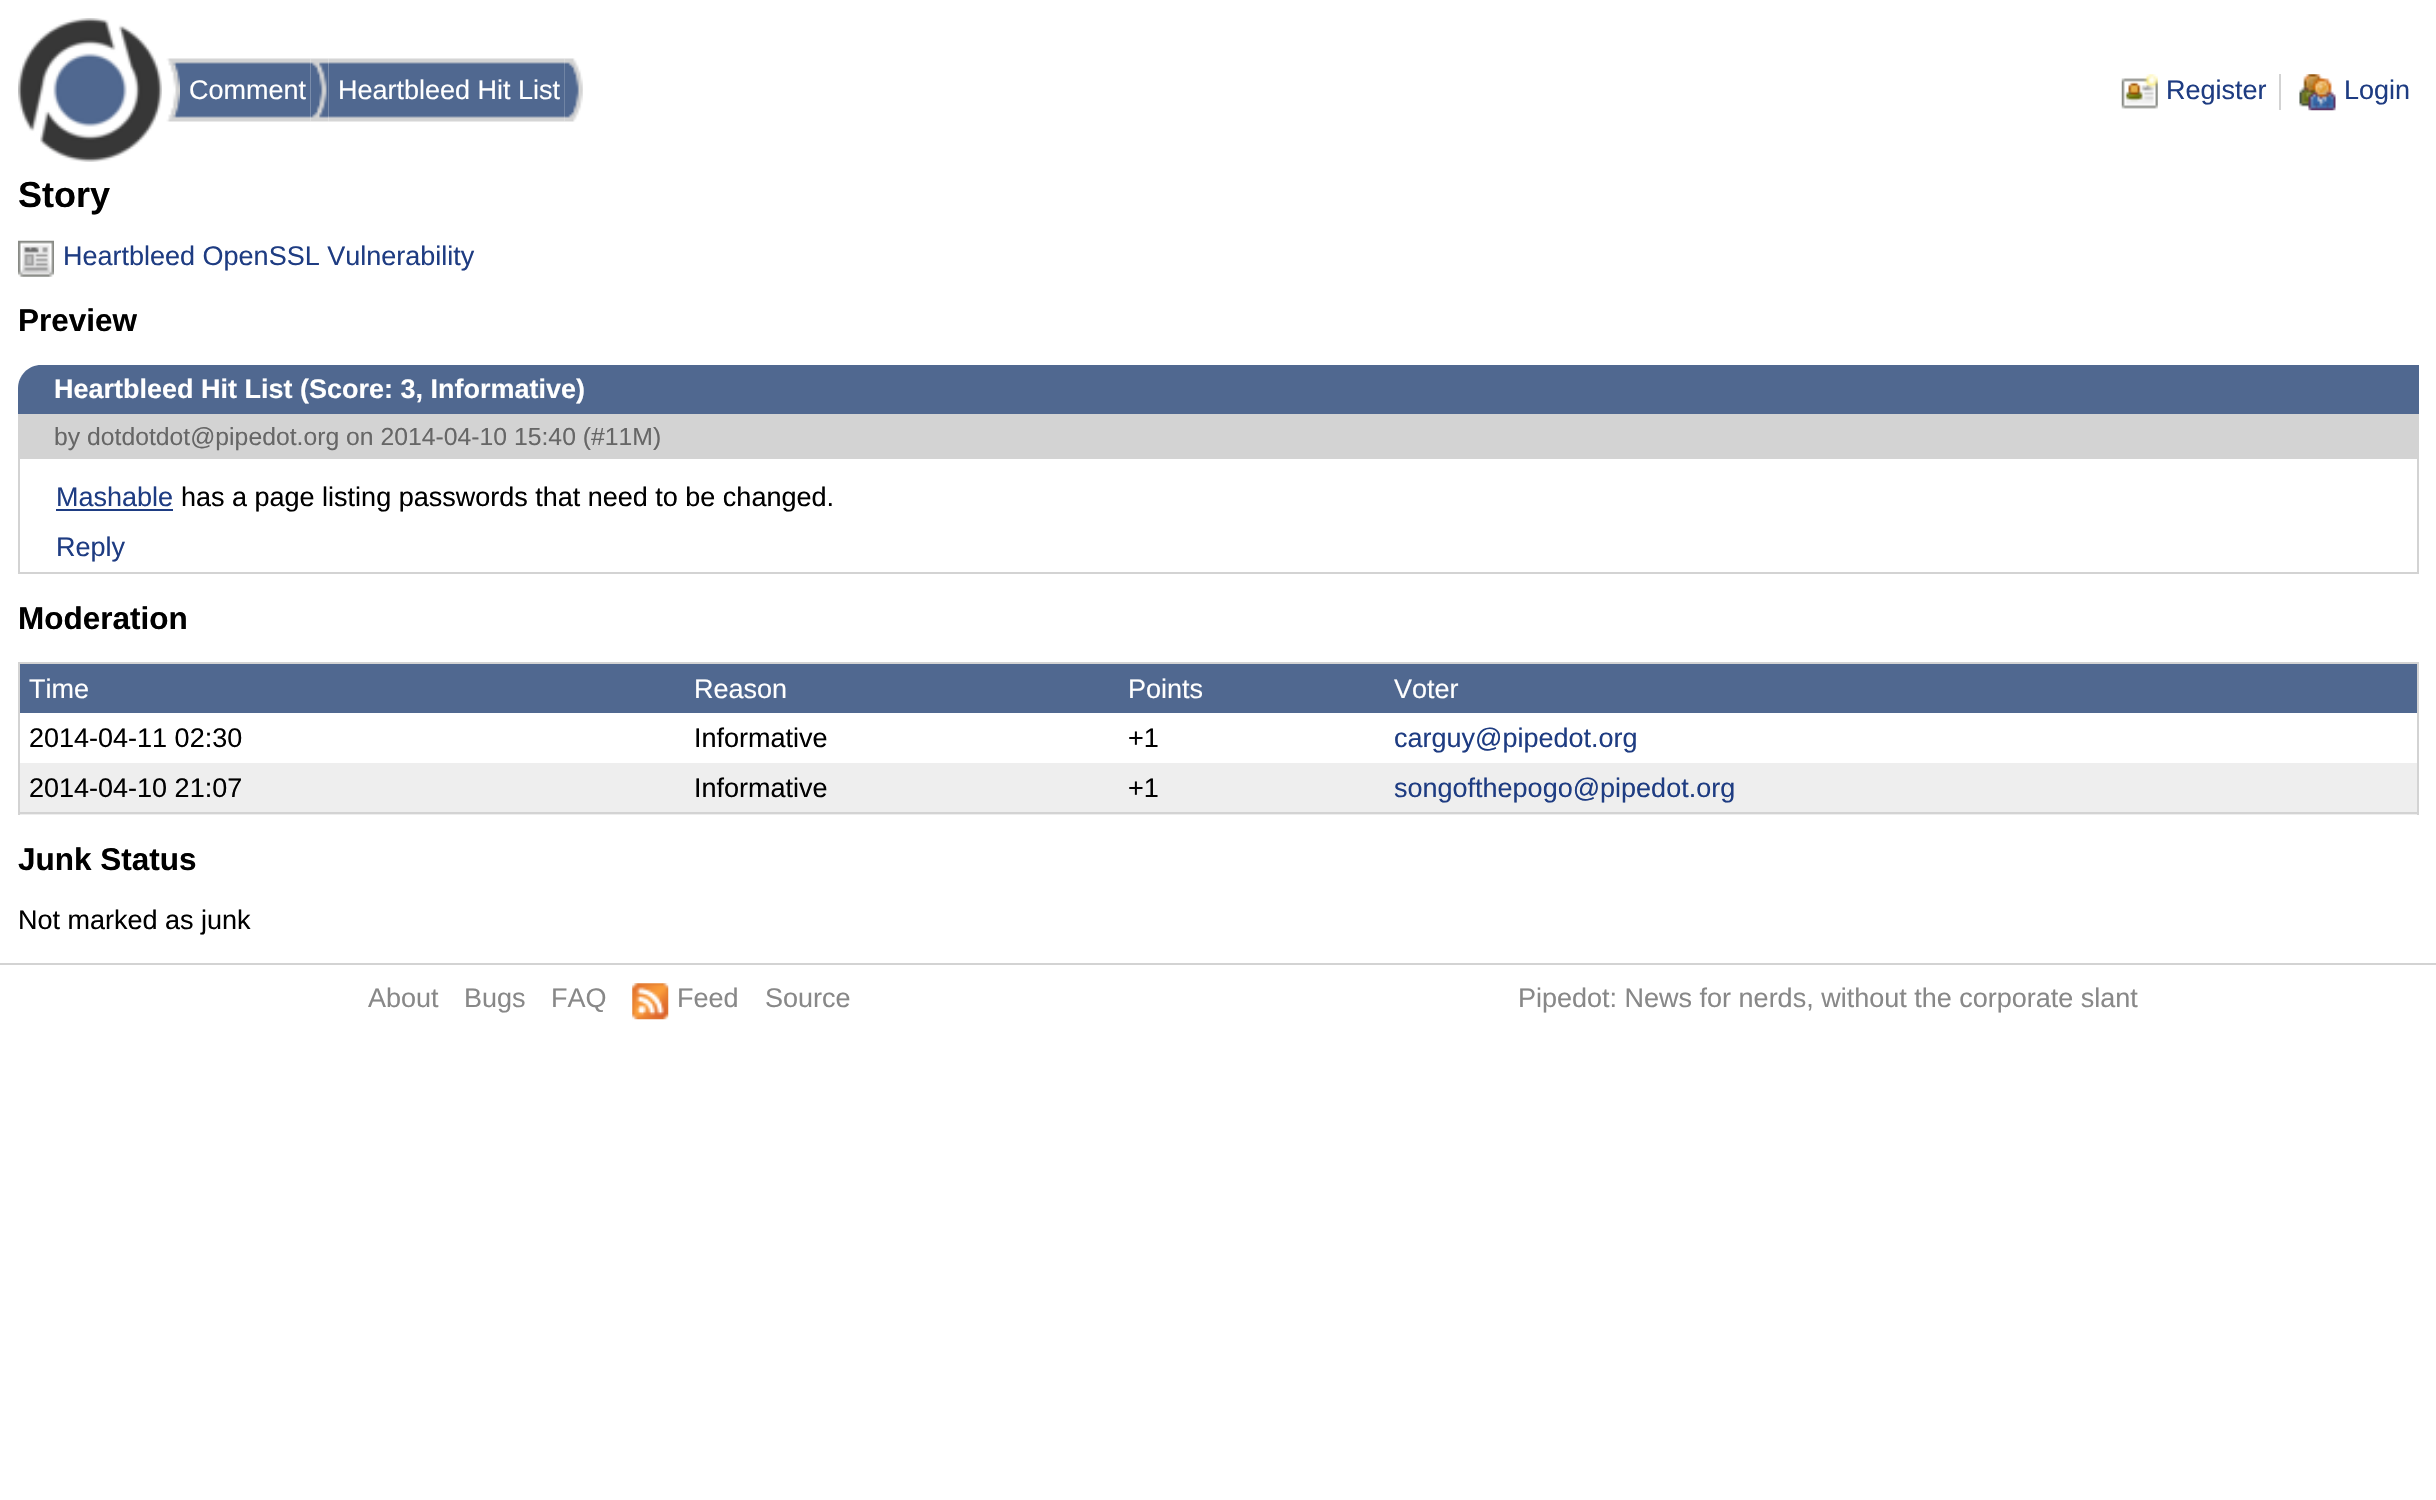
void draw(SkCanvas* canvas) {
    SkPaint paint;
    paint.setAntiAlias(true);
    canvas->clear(0xFFFFFFFF);
    canvas->drawImageRect(SkImages::DeferredFromEncodedData(SkData::MakeFromFileName("img1.png")), SkRect::MakeXYWH(18, 18, 144, 144), SkSamplingOptions());
    canvas->drawImageRect(SkImages::DeferredFromEncodedData(SkData::MakeFromFileName("img2.png")), SkRect::MakeXYWH(166, 58, 14, 64), SkSamplingOptions());
    canvas->drawImageRect(SkImages::DeferredFromEncodedData(SkData::MakeFromFileName("img3.png")), SkRect::MakeXYWH(180, 58, 131, 64), SkSamplingOptions());
    SkFont font1(fontMgr->matchFamilyStyle("Liberation Sans", SkFontStyle::Normal()), 27);
    font1.setSubpixel(true);
    paint.setColor(0xFFFFFFFF);
    canvas->drawString("Comment", 189, 99, font1, paint);
    canvas->drawImageRect(SkImages::DeferredFromEncodedData(SkData::MakeFromFileName("img4.png")), SkRect::MakeXYWH(310, 58, 19, 64), SkSamplingOptions());
    canvas->drawImageRect(SkImages::DeferredFromEncodedData(SkData::MakeFromFileName("img5.png")), SkRect::MakeXYWH(328, 58, 237, 64), SkSamplingOptions());
    canvas->drawString("Heartbleed Hit List", 338, 99, font1, paint);
    canvas->drawImageRect(SkImages::DeferredFromEncodedData(SkData::MakeFromFileName("img6.png")), SkRect::MakeXYWH(564, 58, 19, 64), SkSamplingOptions());
    paint.setColor(0xFFD3D3D3);
    canvas->drawRect(SkRect::MakeXYWH(2279, 74, 2, 36), paint);
    canvas->drawImageRect(SkImages::DeferredFromEncodedData(SkData::MakeFromFileName("img7.png")), SkRect::MakeXYWH(2121, 74, 37, 35), SkSamplingOptions());
    paint.setColor(0xFF1E3C82);
    canvas->drawString("Register", 2166, 99, font1, paint);
    canvas->drawImageRect(SkImages::DeferredFromEncodedData(SkData::MakeFromFileName("img8.png")), SkRect::MakeXYWH(2299, 74, 37, 37), SkSamplingOptions());
    canvas->drawString("Login", 2344, 99, font1, paint);
    SkFont font2(fontMgr->matchFamilyStyle("Liberation Sans", SkFontStyle::Bold()), 36);
    font2.setSubpixel(true);
    paint.setColor(0xFF000000);
    canvas->drawString("Story", 18, 207, font2, paint);
    canvas->drawImageRect(SkImages::DeferredFromEncodedData(SkData::MakeFromFileName("img9.png")), SkRect::MakeXYWH(18, 240, 36, 37), SkSamplingOptions());
    paint.setColor(0xFF1E3C82);
    canvas->drawString("Heartbleed OpenSSL Vulnerability", 63, 265, font1, paint);
    SkFont font3(fontMgr->matchFamilyStyle("Liberation Sans", SkFontStyle::Bold()), 31.5f);
    font3.setSubpixel(true);
    paint.setColor(0xFF000000);
    canvas->drawString("Preview", 18, 331, font3, paint);
    paint.setColor(0xFF506890);
    canvas->drawPath(SkPathBuilder().moveTo(41, 365).lineTo(2419, 365).lineTo(2419, 414).lineTo(18, 414).lineTo(18, 388).cubicTo(18, 375.5f, 28.5f, 365, 41, 365).close().detach(), paint);
    SkFont font4(fontMgr->matchFamilyStyle("Liberation Sans", SkFontStyle::Bold()), 27);
    font4.setSubpixel(true);
    paint.setColor(0xFFFFFFFF);
    canvas->drawString("Heartbleed Hit List (Score: 3, Informative)", 54, 398, font4, paint);
    paint.setColor(0xFFD3D3D3);
    canvas->drawRect(SkRect::MakeXYWH(18, 414, 2401, 45), paint);
    SkFont font5(fontMgr->matchFamilyStyle("Liberation Sans", SkFontStyle::Normal()), 24.75f);
    font5.setSubpixel(true);
    paint.setColor(0xFF666666);
    canvas->drawString("by dotdotdot@pipedot.org on 2014-04-10 15:40 (#11M)", 54, 445, font5, paint);
    paint.setColor(0xFFD3D3D3);
    canvas->drawRect(SkRect::MakeXYWH(2417, 459, 2, 115), paint);
    canvas->drawRect(SkRect::MakeXYWH(18, 572, 2401, 2), paint);
    canvas->drawRect(SkRect::MakeXYWH(18, 459, 2, 115), paint);
    paint.setColor(0xFF1E3C82);
    canvas->drawString("Mashable", 56, 506, font1, paint);
    canvas->drawRect(SkRect::MakeXYWH(56, 509, 117, 2), paint);
    paint.setColor(0xFF000000);
    canvas->drawString("has a page listing passwords that need to be changed.", 181, 506, font1, paint);
    paint.setColor(0xFF1E3C82);
    canvas->drawString("Reply", 56, 556, font1, paint);
    paint.setColor(0xFF000000);
    canvas->drawString("Moderation", 18, 629, font3, paint);
    paint.setColor(0xFFD3D3D3);
    canvas->drawRect(SkRect::MakeXYWH(18, 662, 2401, 2), paint);
    canvas->drawRect(SkRect::MakeXYWH(2417, 662, 2, 153), paint);
    paint.setColor(0xFFEEEEEE);
    canvas->drawRect(SkRect::MakeXYWH(20, 763, 2397, 52), paint);
    paint.setColor(0xFFD3D3D3);
    canvas->drawRect(SkRect::MakeXYWH(18, 812, 2401, 2), paint);
    canvas->drawRect(SkRect::MakeXYWH(18, 662, 2, 153), paint);
    paint.setColor(0xFF506890);
    canvas->drawRect(SkRect::MakeXYWH(20, 664, 2397, 49), paint);
    paint.setColor(0xFFFFFFFF);
    canvas->drawString("Time", 29, 698, font1, paint);
    canvas->drawString("Reason", 694, 698, font1, paint);
    canvas->drawString("Points", 1128, 698, font1, paint);
    canvas->drawString("Voter", 1394, 698, font1, paint);
    paint.setColor(0xFF000000);
    canvas->drawString("2014-04-11 02:30", 29, 747, font1, paint);
    canvas->drawString("Informative", 694, 747, font1, paint);
    canvas->drawString("+1", 1128, 747, font1, paint);
    paint.setColor(0xFF1E3C82);
    canvas->drawString("carguy@pipedot.org", 1394, 747, font1, paint);
    paint.setColor(0xFF000000);
    canvas->drawString("2014-04-10 21:07", 29, 797, font1, paint);
    canvas->drawString("Informative", 694, 797, font1, paint);
    canvas->drawString("+1", 1128, 797, font1, paint);
    paint.setColor(0xFF1E3C82);
    canvas->drawString("songofthepogo@pipedot.org", 1394, 797, font1, paint);
    paint.setColor(0xFF000000);
    canvas->drawString("Junk Status", 18, 870, font3, paint);
    canvas->drawString("Not marked as junk", 18, 929, font1, paint);
    paint.setColor(0xFFD3D3D3);
    canvas->drawRect(SkRect::MakeXYWH(0, 963, 2436, 2), paint);
    paint.setColor(0xFF888888);
    canvas->drawString("About", 368, 1007, font1, paint);
    canvas->drawString("Bugs", 464, 1007, font1, paint);
    canvas->drawString("FAQ", 551, 1007, font1, paint);
    canvas->drawImageRect(SkImages::DeferredFromEncodedData(SkData::MakeFromFileName("img10.png")), SkRect::MakeXYWH(632, 983, 37, 37), SkSamplingOptions());
    canvas->drawString("Feed", 677, 1007, font1, paint);
    canvas->drawString("Source", 765, 1007, font1, paint);
    canvas->drawString("Pipedot: News for nerds, without the corporate slant", 1518, 1007, font1, paint);
}
